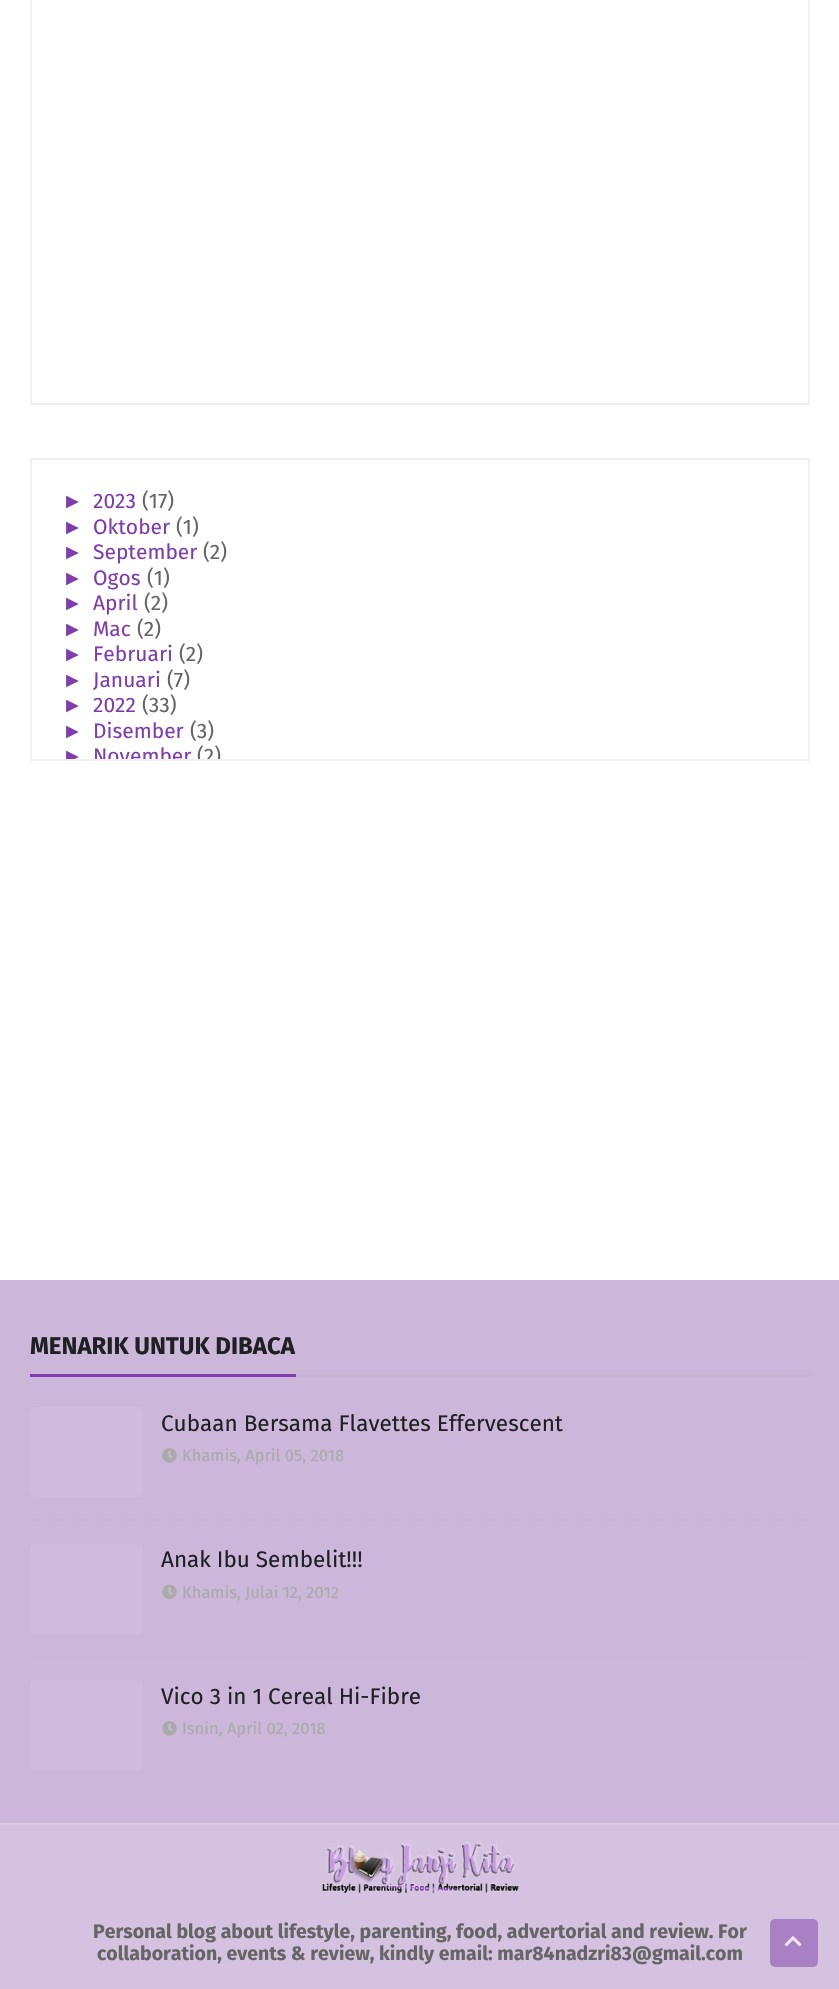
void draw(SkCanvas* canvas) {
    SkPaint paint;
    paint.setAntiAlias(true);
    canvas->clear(0xFFFFFFFF);
    paint.setStyle(SkPaint::kStroke_Style);
    paint.setStrokeWidth(2);
    paint.setColor(0xFFF0F0F0);
    canvas->drawRect(SkRect::MakeXYWH(31, -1, 778, 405), paint);
    canvas->drawRect(SkRect::MakeXYWH(31, 459, 778, 301), paint);
    SkFont font1(fontMgr->matchFamilyStyle("Liberation Sans", SkFontStyle::Normal()), 21);
    font1.setSubpixel(true);
    paint.setStyle(SkPaint::kFill_Style);
    paint.setColor(0xFF7F3EA9);
    canvas->drawString("►", 62, 508, font1, paint);
    SkFont font2(fontMgr->matchFamilyStyle("Fira Sans", SkFontStyle::Normal()), 21);
    font2.setSubpixel(true);
    canvas->drawString("2023", 93, 508, font2, paint);
    paint.setColor(0xFF656565);
    canvas->drawString("(17)", 142, 508, font2, paint);
    paint.setColor(0xFF7F3EA9);
    canvas->drawString("►", 62, 534, font1, paint);
    canvas->drawString("Oktober", 93, 534, font2, paint);
    paint.setColor(0xFF656565);
    canvas->drawString("(1)", 176, 534, font2, paint);
    paint.setColor(0xFF7F3EA9);
    canvas->drawString("►", 62, 559, font1, paint);
    canvas->drawString("September", 93, 559, font2, paint);
    paint.setColor(0xFF656565);
    canvas->drawString("(2)", 203, 559, font2, paint);
    paint.setColor(0xFF7F3EA9);
    canvas->drawString("►", 62, 585, font1, paint);
    canvas->drawString("Ogos", 93, 585, font2, paint);
    paint.setColor(0xFF656565);
    canvas->drawString("(1)", 147, 585, font2, paint);
    paint.setColor(0xFF7F3EA9);
    canvas->drawString("►", 62, 610, font1, paint);
    canvas->drawString("April", 93, 610, font2, paint);
    paint.setColor(0xFF656565);
    canvas->drawString("(2)", 144, 610, font2, paint);
    paint.setColor(0xFF7F3EA9);
    canvas->drawString("►", 62, 636, font1, paint);
    canvas->drawString("Mac", 93, 636, font2, paint);
    paint.setColor(0xFF656565);
    canvas->drawString("(2)", 137, 636, font2, paint);
    paint.setColor(0xFF7F3EA9);
    canvas->drawString("►", 62, 661, font1, paint);
    canvas->drawString("Februari", 93, 661, font2, paint);
    paint.setColor(0xFF656565);
    canvas->drawString("(2)", 179, 661, font2, paint);
    paint.setColor(0xFF7F3EA9);
    canvas->drawString("►", 62, 687, font1, paint);
    canvas->drawString("Januari", 93, 687, font2, paint);
    paint.setColor(0xFF656565);
    canvas->drawString("(7)", 167, 687, font2, paint);
    paint.setColor(0xFF7F3EA9);
    canvas->drawString("►", 62, 712, font1, paint);
    canvas->drawString("2022", 93, 712, font2, paint);
    paint.setColor(0xFF656565);
    canvas->drawString("(33)", 142, 712, font2, paint);
    paint.setColor(0xFF7F3EA9);
    canvas->drawString("►", 62, 738, font1, paint);
    canvas->drawString("Disember", 93, 738, font2, paint);
    paint.setColor(0xFF656565);
    canvas->drawString("(3)", 190, 738, font2, paint);
    canvas->save();
    canvas->clipRect(SkRect::MakeXYWH(32, 459, 777, 300));
    paint.setColor(0xFF7F3EA9);
    canvas->drawString("►", 62, 763, font1, paint);
    canvas->drawString("November", 93, 763, font2, paint);
    paint.setColor(0xFF656565);
    canvas->drawString("(2)", 197, 763, font2, paint);
    canvas->restore();
    paint.setColor(0xFFCCB7DA);
    canvas->drawRect(SkRect::MakeXYWH(0, 1280, 839, 543), paint);
    paint.setColor(0xFFC5B3D1);
    canvas->drawRect(SkRect::MakeXYWH(296, 1374, 514, 3), paint);
    SkFont font3(fontMgr->matchFamilyStyle("Fira Sans", SkFontStyle::Bold()), 24);
    font3.setSubpixel(true);
    paint.setColor(0xFF1F2024);
    canvas->drawString("MENARIK UNTUK DIBACA", 30, 1354, font3, paint);
    paint.setColor(0xFF7F3EA9);
    canvas->drawRect(SkRect::MakeXYWH(30, 1374, 266, 3), paint);
    paint.setColor(0xFFCFBCDC);
    canvas->drawRoundRect(SkRect::MakeXYWH(30, 1407, 113, 90), 5, 5, paint);
    SkFont font4(fontMgr->matchFamilyStyle("Fira Sans", SkFontStyle::Normal()), 22.5f);
    font4.setSubpixel(true);
    paint.setColor(0xFF1F2024);
    canvas->drawString("Cubaan Bersama Flavettes Effervescent", 161, 1431, font4, paint);
    canvas->drawImageRect(SkImages::DeferredFromEncodedData(SkData::MakeFromFileName("img1.png")), SkRect::MakeXYWH(162, 1448, 15, 15), SkSamplingOptions());
    SkFont font5(fontMgr->matchFamilyStyle("Fira Sans", SkFontStyle::Normal()), 16.5f);
    font5.setSubpixel(true);
    paint.setColor(0xFFAAAAAA);
    canvas->drawString("Khamis, April 05, 2018", 182, 1461, font5, paint);
    paint.setStyle(SkPaint::kStroke_Style);
    paint.setStrokeWidth(1.5f);
    paint.setColor(0xFFC5B3D1);
    paint.setPathEffect(SkDashPathEffect::Make({{1.5f, 1.5f}}, 0));
    canvas->drawPath(SkPathBuilder().moveTo(30, 1520).lineTo(810, 1520).detach(), paint);
    paint.setPathEffect(nullptr);
    paint.setStyle(SkPaint::kFill_Style);
    paint.setColor(0xFFCFBCDC);
    canvas->drawRoundRect(SkRect::MakeXYWH(30, 1544, 113, 90), 5, 5, paint);
    paint.setColor(0xFF1F2024);
    canvas->drawString("Anak Ibu Sembelit!!!", 161, 1567, font4, paint);
    canvas->drawImageRect(SkImages::DeferredFromEncodedData(SkData::MakeFromFileName("img2.png")), SkRect::MakeXYWH(162, 1584, 15, 16), SkSamplingOptions());
    paint.setColor(0xFFAAAAAA);
    canvas->drawString("Khamis, Julai 12, 2012", 182, 1598, font5, paint);
    paint.setStyle(SkPaint::kStroke_Style);
    paint.setColor(0xFFC5B3D1);
    paint.setPathEffect(SkDashPathEffect::Make({{1.5f, 1.5f}}, 0));
    canvas->drawPath(SkPathBuilder().moveTo(30, 1657).lineTo(810, 1657).detach(), paint);
    paint.setPathEffect(nullptr);
    paint.setStyle(SkPaint::kFill_Style);
    paint.setColor(0xFFCFBCDC);
    canvas->drawRoundRect(SkRect::MakeXYWH(30, 1680, 113, 90), 5, 5, paint);
    paint.setColor(0xFF1F2024);
    canvas->drawString("Vico 3 in 1 Cereal Hi-Fibre", 161, 1704, font4, paint);
    canvas->drawImageRect(SkImages::DeferredFromEncodedData(SkData::MakeFromFileName("img1.png")), SkRect::MakeXYWH(162, 1721, 15, 15), SkSamplingOptions());
    paint.setColor(0xFFAAAAAA);
    canvas->drawString("Isnin, April 02, 2018", 182, 1734, font5, paint);
    paint.setColor(0xFFD4C2E0);
    canvas->drawRect(SkRect::MakeXYWH(0, 1825, 839, 164), paint);
    paint.setColor(0xFFDACBE5);
    canvas->drawRect(SkRect::MakeXYWH(0, 1823, 839, 2), paint);
    canvas->drawImageRect(SkImages::DeferredFromEncodedData(SkData::MakeFromFileName("img3.png")), SkRect::MakeXYWH(322, 1841, 197, 53), SkSamplingOptions());
    SkFont font6(fontMgr->matchFamilyStyle("Fira Sans", SkFontStyle::Bold()), 19.5f);
    font6.setSubpixel(true);
    paint.setColor(0xFF656565);
    canvas->drawString("Personal blog about lifestyle, parenting, food, advertorial and review. For", 93, 1938, font6, paint);
    canvas->drawString("collaboration, events & review, kindly email: mar84nadzri83@gmail.com", 97, 1960, font6, paint);
    paint.setColor(0xFFAA80C5);
    canvas->drawRoundRect(SkRect::MakeXYWH(770, 1919, 48, 48), 5, 5, paint);
    canvas->drawImageRect(SkImages::DeferredFromEncodedData(SkData::MakeFromFileName("img4.png")), SkRect::MakeXYWH(784, 1936, 18, 11), SkSamplingOptions());
}
